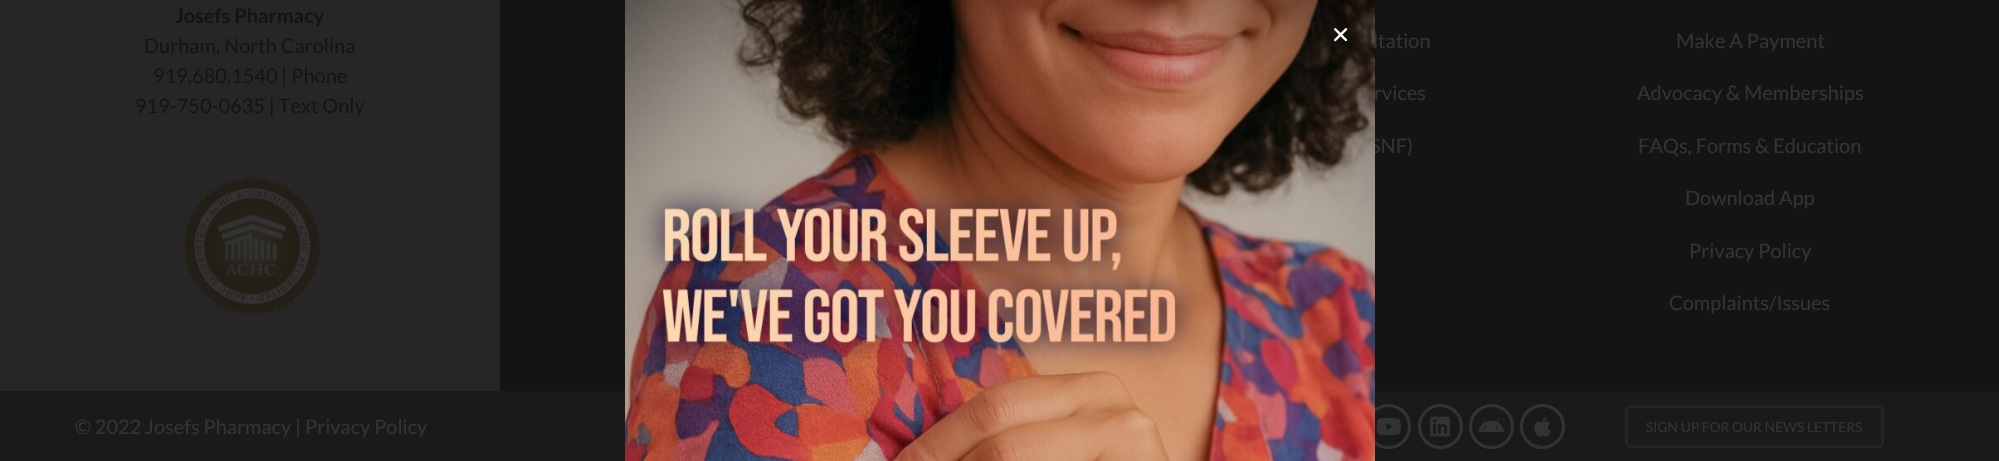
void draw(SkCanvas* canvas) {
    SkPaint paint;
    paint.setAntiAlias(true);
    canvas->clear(0xFF151414);
    SkFont font1(fontMgr->matchFamilyStyle("Lato", SkFontStyle::Normal()), 20);
    font1.setSubpixel(true);
    paint.setColor(0xFF333333);
    canvas->drawString("SNF)", 1370, 153, font1, paint);
    paint.setColor(0xFF1B1A1A);
    canvas->drawRect(SkRect::MakeXYWH(0, 391, 1999, 70), paint);
    paint.setStyle(SkPaint::kStroke_Style);
    paint.setStrokeWidth(3);
    paint.setColor(0xFF333333);
    canvas->drawCircle(1388.5f, 426.5f, 21, paint);
    canvas->drawImageRect(SkImages::DeferredFromEncodedData(SkData::MakeFromFileName("img1.png")), SkRect::MakeXYWH(625, 0, 750, 461), SkSamplingOptions());
    canvas->drawImageRect(SkImages::DeferredFromEncodedData(SkData::MakeFromFileName("img2.png")), SkRect::MakeXYWH(1334, 28, 14, 14), SkSamplingOptions());
    paint.setStyle(SkPaint::kFill_Style);
    paint.setColor(0xFF262626);
    canvas->drawRect(SkRect::MakeXYWH(0, 0, 500, 391), paint);
    SkFont font2(fontMgr->matchFamilyStyle("Lato", SkFontStyle::Bold()), 20);
    font2.setSubpixel(true);
    paint.setColor(0xFF151414);
    canvas->drawString("Josefs Pharmacy", 175, 23, font2, paint);
    canvas->drawString("Durham, North Carolina", 144, 53, font1, paint);
    canvas->drawString("919.680.1540 | Phone", 153, 83, font1, paint);
    canvas->drawString("919-750-0635 | Text Only", 135, 113, font1, paint);
    canvas->drawImageRect(SkImages::DeferredFromEncodedData(SkData::MakeFromFileName("img3.png")), SkRect::MakeXYWH(182, 176, 140, 140), SkSamplingOptions());
    paint.setColor(0xFF333333);
    canvas->drawString("ltation", 1373, 48, font1, paint);
    canvas->drawString("rvices", 1374, 100, font1, paint);
    canvas->drawString("Make A Payment", 1676, 48, font1, paint);
    canvas->drawString("Advocacy & Memberships", 1637, 100, font1, paint);
    canvas->drawString("FAQs, Forms & Education", 1638, 153, font1, paint);
    canvas->drawString("Download App", 1685, 205, font1, paint);
    canvas->drawString("Privacy Policy", 1689, 258, font1, paint);
    canvas->drawString("Complaints/Issues", 1669, 310, font1, paint);
    canvas->drawString("© 2022 Josefs Pharmacy | Privacy Policy", 75, 434, font1, paint);
    canvas->drawImageRect(SkImages::DeferredFromEncodedData(SkData::MakeFromFileName("img4.png")), SkRect::MakeXYWH(1376, 418, 25, 17), SkSamplingOptions());
    paint.setStyle(SkPaint::kStroke_Style);
    canvas->drawCircle(1440.5f, 426.5f, 21, paint);
    canvas->drawImageRect(SkImages::DeferredFromEncodedData(SkData::MakeFromFileName("img5.png")), SkRect::MakeXYWH(1430, 416, 20, 21), SkSamplingOptions());
    canvas->drawCircle(1491.5f, 426.5f, 21, paint);
    canvas->drawImageRect(SkImages::DeferredFromEncodedData(SkData::MakeFromFileName("img6.png")), SkRect::MakeXYWH(1478, 418, 26, 15), SkSamplingOptions());
    canvas->drawCircle(1542.5f, 426.5f, 21, paint);
    canvas->drawImageRect(SkImages::DeferredFromEncodedData(SkData::MakeFromFileName("img7.png")), SkRect::MakeXYWH(1534, 416, 17, 21), SkSamplingOptions());
    paint.setColor(0xFF242424);
    canvas->drawRoundRect(SkRect::MakeXYWH(1626.5f, 406.5f, 256, 40), 4.5f, 4.5f, paint);
    SkFont font3(fontMgr->matchFamilyStyle("Lato", SkFontStyle::Normal()), 13.75f);
    font3.setSubpixel(true);
    paint.setStyle(SkPaint::kFill_Style);
    paint.setColor(0xFF333333);
    canvas->drawString("SIGN UP FOR OUR NEWS LETTERS", 1646, 432, font3, paint);
}
